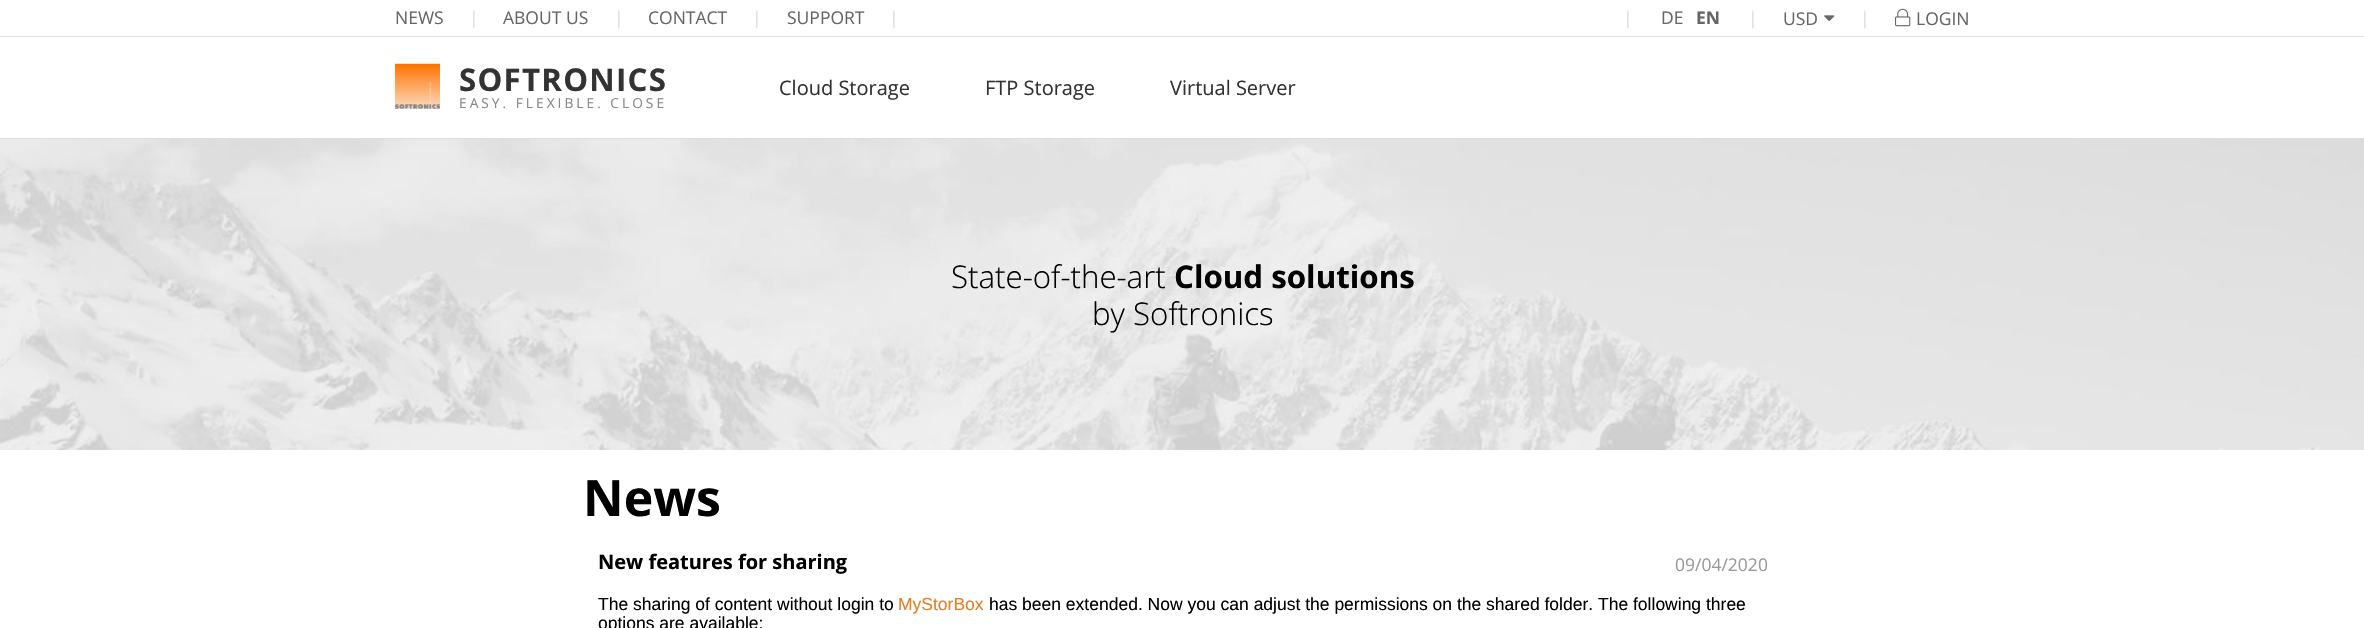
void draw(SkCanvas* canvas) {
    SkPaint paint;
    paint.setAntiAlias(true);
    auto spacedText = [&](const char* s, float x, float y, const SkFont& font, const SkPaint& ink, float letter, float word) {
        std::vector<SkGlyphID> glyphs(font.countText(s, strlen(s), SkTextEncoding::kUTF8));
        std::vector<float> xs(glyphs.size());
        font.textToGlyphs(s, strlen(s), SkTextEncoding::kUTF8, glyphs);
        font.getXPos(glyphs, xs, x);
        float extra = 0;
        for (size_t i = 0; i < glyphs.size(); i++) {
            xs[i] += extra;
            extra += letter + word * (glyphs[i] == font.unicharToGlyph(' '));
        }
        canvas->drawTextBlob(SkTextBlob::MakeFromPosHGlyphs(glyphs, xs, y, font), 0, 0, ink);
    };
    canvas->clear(0xFFFFFFFF);
    paint.setColor(0xFFDDDDDD);
    canvas->drawRect(SkRect::MakeXYWH(0, 138, 2364, 1), paint);
    canvas->drawRect(SkRect::MakeXYWH(0, 36, 2364, 1), paint);
    SkFont font1(fontMgr->matchFamilyStyle("Open Sans", SkFontStyle::Normal()), 17.5f);
    font1.setSubpixel(true);
    paint.setColor(0xFF666666);
    canvas->drawString("NEWS", 395, 24, font1, paint);
    paint.setColor(0xFFDDDDDD);
    canvas->drawString("|", 469, 24, font1, paint);
    paint.setColor(0xFF666666);
    canvas->drawString("ABOUT US", 503, 24, font1, paint);
    paint.setColor(0xFFDDDDDD);
    canvas->drawString("|", 614, 24, font1, paint);
    paint.setColor(0xFF666666);
    canvas->drawString("CONTACT", 648, 24, font1, paint);
    paint.setColor(0xFFDDDDDD);
    canvas->drawString("|", 752, 24, font1, paint);
    paint.setColor(0xFF666666);
    canvas->drawString("SUPPORT", 787, 24, font1, paint);
    paint.setColor(0xFFDDDDDD);
    canvas->drawString("|", 889, 24, font1, paint);
    canvas->drawString("|", 1623, 24, font1, paint);
    paint.setColor(0xFF666666);
    canvas->drawString("DE", 1661, 24, font1, paint);
    SkFont font2(fontMgr->matchFamilyStyle("Open Sans", SkFontStyle::Bold()), 17.5f);
    font2.setSubpixel(true);
    canvas->drawString("EN", 1696, 24, font2, paint);
    paint.setColor(0xFFDDDDDD);
    canvas->drawString("|", 1748, 24, font1, paint);
    paint.setColor(0xFF666666);
    canvas->drawString("USD", 1783, 25, font1, paint);
    canvas->drawImageRect(SkImages::DeferredFromEncodedData(SkData::MakeFromFileName("img1.png")), SkRect::MakeXYWH(1824, 15, 11, 6), SkSamplingOptions());
    paint.setColor(0xFFDDDDDD);
    canvas->drawString("|", 1860, 24, font1, paint);
    canvas->drawImageRect(SkImages::DeferredFromEncodedData(SkData::MakeFromFileName("img2.png")), SkRect::MakeXYWH(1895, 8, 16, 19), SkSamplingOptions());
    paint.setColor(0xFF666666);
    canvas->drawString("LOGIN", 1916, 25, font1, paint);
    canvas->drawImageRect(SkImages::DeferredFromEncodedData(SkData::MakeFromFileName("img3.png")), SkRect::MakeXYWH(395, 63, 45, 46), SkSamplingOptions());
    SkFont font3(fontMgr->matchFamilyStyle("Open Sans", SkFontStyle::Bold()), 31.25f);
    font3.setSubpixel(true);
    paint.setColor(0xFF333333);
    spacedText("SOFTRONICS", 459, 91, font3, paint, 1.25f, 0);
    SkFont font4(fontMgr->matchFamilyStyle("Open Sans", SkFontStyle::Normal()), 13.75f);
    font4.setSubpixel(true);
    paint.setColor(0xFF888888);
    spacedText("EASY. FLEXIBLE. CLOSE", 459, 108, font4, paint, 3, 0);
    SkFont font5(fontMgr->matchFamilyStyle("Open Sans", SkFontStyle::Normal()), 20);
    font5.setSubpixel(true);
    paint.setColor(0xFF333333);
    canvas->drawString("Cloud Storage", 779, 95, font5, paint);
    canvas->drawString("FTP Storage", 985, 95, font5, paint);
    canvas->drawString("Virtual Server", 1170, 95, font5, paint);
    canvas->drawImageRect(SkImages::DeferredFromEncodedData(SkData::MakeFromFileName("img4.png")), SkRect::MakeXYWH(0, 139, 2364, 311), SkSamplingOptions());
    SkFont font6(fontMgr->matchFamilyStyle("Open Sans", SkFontStyle(300, SkFontStyle::kNormal_Width, SkFontStyle::kUpright_Slant)), 31.25f);
    font6.setSubpixel(true);
    paint.setColor(0xFF000000);
    canvas->drawString("State-of-the-art", 951, 288, font6, paint);
    canvas->drawString("Cloud solutions", 1174, 288, font3, paint);
    canvas->drawString("by Softronics", 1092, 325, font6, paint);
    SkFont font7(fontMgr->matchFamilyStyle("Open Sans", SkFontStyle::Bold()), 50);
    font7.setSubpixel(true);
    canvas->drawString("News", 583, 516, font7, paint);
    SkFont font8(fontMgr->matchFamilyStyle("Open Sans", SkFontStyle::Bold()), 20);
    font8.setSubpixel(true);
    canvas->drawString("New features for sharing", 598, 569, font8, paint);
    paint.setColor(0xFF999999);
    canvas->drawString("09/04/2020", 1675, 571, font1, paint);
    SkFont font9(fontMgr->matchFamilyStyle("Liberation Sans", SkFontStyle::Normal()), 17.5f);
    font9.setSubpixel(true);
    paint.setColor(0xFF000000);
    canvas->drawString("The sharing of content without login to", 598, 610, font9, paint);
    paint.setColor(0xFFE67E22);
    canvas->drawString("MyStorBox", 898, 610, font9, paint);
    paint.setColor(0xFF000000);
    canvas->drawString("has been extended. Now you can adjust the permissions on the shared folder. The following three", 989, 610, font9, paint);
    canvas->drawString("options are available:", 598, 629, font9, paint);
}
